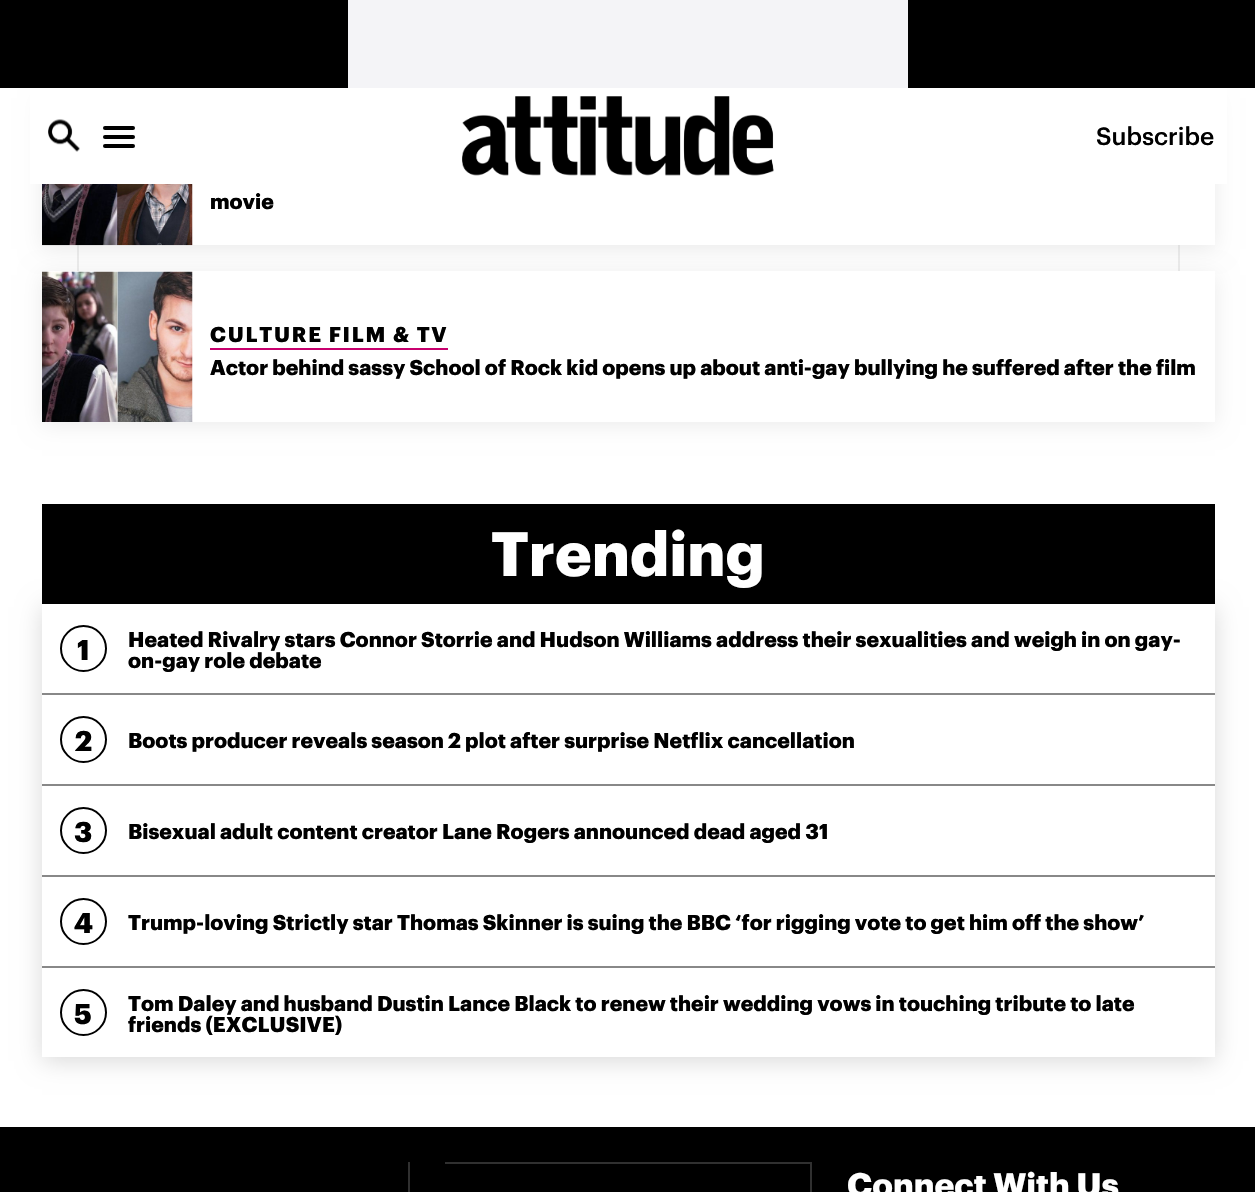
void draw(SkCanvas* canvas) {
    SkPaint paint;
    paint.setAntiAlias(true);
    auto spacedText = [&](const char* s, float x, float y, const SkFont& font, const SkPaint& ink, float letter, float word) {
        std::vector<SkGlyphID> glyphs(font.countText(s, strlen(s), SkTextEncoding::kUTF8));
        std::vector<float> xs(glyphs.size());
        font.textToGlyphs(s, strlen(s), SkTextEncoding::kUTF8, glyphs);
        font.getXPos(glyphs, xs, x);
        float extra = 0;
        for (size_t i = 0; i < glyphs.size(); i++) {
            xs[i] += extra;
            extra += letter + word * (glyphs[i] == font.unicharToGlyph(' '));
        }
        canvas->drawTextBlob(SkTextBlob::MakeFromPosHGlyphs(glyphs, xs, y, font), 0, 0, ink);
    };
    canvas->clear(0xFFFFFFFF);
    paint.setStyle(SkPaint::kStroke_Style);
    paint.setStrokeWidth(2);
    paint.setColor(0xFFEEEEEE);
    canvas->drawRect(SkRect::MakeXYWH(78, 131, 1101, 281), paint);
    paint.setStyle(SkPaint::kFill_Style);
    paint.setColor(0x14000000);
    paint.setMaskFilter(SkMaskFilter::MakeBlur(kNormal_SkBlurStyle, 10.5f));
    canvas->drawRect(SkRect::MakeXYWH(42, 98, 1173, 151), paint);
    paint.setMaskFilter(nullptr);
    paint.setColor(0xFFFFFFFF);
    canvas->drawRect(SkRect::MakeXYWH(30, 88, 1197, 96), paint);
    paint.setColor(0xFF000000);
    canvas->drawRect(SkRect::MakeXYWH(0, 0, 1255, 88), paint);
    paint.setColor(0xFFF4F4F7);
    canvas->drawRect(SkRect::MakeXYWH(348, 0, 560, 88), paint);
    canvas->drawImageRect(SkImages::DeferredFromEncodedData(SkData::MakeFromFileName("img1.png")), SkRect::MakeXYWH(48, 119, 32, 33), SkSamplingOptions());
    paint.setColor(0xFF000000);
    canvas->drawRoundRect(SkRect::MakeXYWH(103, 126, 32, 4), 2, 2, paint);
    canvas->drawRoundRect(SkRect::MakeXYWH(103, 135, 32, 4), 2, 2, paint);
    canvas->drawRoundRect(SkRect::MakeXYWH(103, 144, 32, 4), 2, 2, paint);
    canvas->drawImageRect(SkImages::DeferredFromEncodedData(SkData::MakeFromFileName("img2.png")), SkRect::MakeXYWH(462, 96, 312, 80), SkSamplingOptions());
    SkFont font1(fontMgr->matchFamilyStyle("Graphik", SkFontStyle(500, SkFontStyle::kNormal_Width, SkFontStyle::kUpright_Slant)), 24.5f);
    font1.setSubpixel(true);
    canvas->drawString("Subscribe", 1096, 145, font1, paint);
    paint.setColor(0x14000000);
    paint.setMaskFilter(SkMaskFilter::MakeBlur(kNormal_SkBlurStyle, 10.5f));
    canvas->drawRect(SkRect::MakeXYWH(42, 275, 1173, 150), paint);
    paint.setMaskFilter(nullptr);
    paint.setColor(0xFFFFFFFF);
    canvas->drawRect(SkRect::MakeXYWH(192, 184, 1023, 61), paint);
    canvas->drawImageRect(SkImages::DeferredFromEncodedData(SkData::MakeFromFileName("img3.png")), SkRect::MakeXYWH(42, 184, 151, 62), SkSamplingOptions());
    SkFont font2(fontMgr->matchFamilyStyle("Graphik", SkFontStyle::Bold()), 21);
    font2.setSubpixel(true);
    paint.setColor(0xFF000000);
    canvas->drawString("movie", 210, 209, font2, paint);
    paint.setColor(0xFFFFFFFF);
    canvas->drawRect(SkRect::MakeXYWH(42, 271, 1173, 151), paint);
    canvas->drawImageRect(SkImages::DeferredFromEncodedData(SkData::MakeFromFileName("img4.png")), SkRect::MakeXYWH(42, 271, 151, 151), SkSamplingOptions());
    paint.setColor(0xFFC8006E);
    canvas->drawRect(SkRect::MakeXYWH(210, 348, 238, 2), paint);
    paint.setColor(0xFF000000);
    spacedText("CULTURE FILM & TV", 210, 342, font2, paint, 1.75f, 0);
    canvas->drawString("Actor behind sassy School of Rock kid opens up about anti-gay bullying he suffered after the film", 210, 375, font2, paint);
    canvas->drawRect(SkRect::MakeXYWH(42, 504, 1173, 100), paint);
    SkFont font3(fontMgr->matchFamilyStyle("Graphik", SkFontStyle::Bold()), 61.25f);
    font3.setSubpixel(true);
    paint.setColor(0xFFFFFFFF);
    canvas->drawString("Trending", 491, 576, font3, paint);
    paint.setColor(0x26000000);
    paint.setMaskFilter(SkMaskFilter::MakeBlur(kNormal_SkBlurStyle, 11.5f));
    canvas->drawRect(SkRect::MakeXYWH(42, 607, 1173, 454), paint);
    paint.setMaskFilter(nullptr);
    paint.setColor(0xFFFFFFFF);
    canvas->drawRect(SkRect::MakeXYWH(42, 604, 1173, 453), paint);
    paint.setColor(0xFF888888);
    canvas->drawRect(SkRect::MakeXYWH(42, 693, 1173, 2), paint);
    paint.setStyle(SkPaint::kStroke_Style);
    paint.setColor(0xFF000000);
    canvas->drawCircle(83.5f, 648.5f, 22.5f, paint);
    SkFont font4(fontMgr->matchFamilyStyle("Graphik", SkFontStyle::Bold()), 28);
    font4.setSubpixel(true);
    paint.setStyle(SkPaint::kFill_Style);
    canvas->drawString("1", 77, 660, font4, paint);
    canvas->drawString("Heated Rivalry stars Connor Storrie and Hudson Williams address their sexualities and weigh in on gay-", 128, 647, font2, paint);
    canvas->drawString("on-gay role debate", 128, 668, font2, paint);
    paint.setColor(0xFF888888);
    canvas->drawRect(SkRect::MakeXYWH(42, 784, 1173, 2), paint);
    paint.setStyle(SkPaint::kStroke_Style);
    paint.setColor(0xFF000000);
    canvas->drawCircle(83.5f, 739.5f, 22.5f, paint);
    paint.setStyle(SkPaint::kFill_Style);
    canvas->drawString("2", 75, 751, font4, paint);
    canvas->drawString("Boots producer reveals season 2 plot after surprise Netflix cancellation", 128, 748, font2, paint);
    paint.setColor(0xFF888888);
    canvas->drawRect(SkRect::MakeXYWH(42, 875, 1173, 2), paint);
    paint.setStyle(SkPaint::kStroke_Style);
    paint.setColor(0xFF000000);
    canvas->drawCircle(83.5f, 830.5f, 22.5f, paint);
    paint.setStyle(SkPaint::kFill_Style);
    canvas->drawString("3", 74, 842, font4, paint);
    canvas->drawString("Bisexual adult content creator Lane Rogers announced dead aged 31", 128, 839, font2, paint);
    paint.setColor(0xFF888888);
    canvas->drawRect(SkRect::MakeXYWH(42, 966, 1173, 2), paint);
    paint.setStyle(SkPaint::kStroke_Style);
    paint.setColor(0xFF000000);
    canvas->drawCircle(83.5f, 921.5f, 22.5f, paint);
    paint.setStyle(SkPaint::kFill_Style);
    canvas->drawString("4", 74, 933, font4, paint);
    canvas->drawString("Trump-loving Strictly star Thomas Skinner is suing the BBC ‘for rigging vote to get him off the show’", 128, 930, font2, paint);
    paint.setStyle(SkPaint::kStroke_Style);
    canvas->drawCircle(83.5f, 1012.5f, 22.5f, paint);
    paint.setStyle(SkPaint::kFill_Style);
    canvas->drawString("5", 74, 1024, font4, paint);
    canvas->drawString("Tom Daley and husband Dustin Lance Black to renew their wedding vows in touching tribute to late", 128, 1011, font2, paint);
    canvas->drawString("friends (EXCLUSIVE)", 128, 1032, font2, paint);
    canvas->drawRect(SkRect::MakeXYWH(0, 1127, 1255, 65), paint);
    paint.setColor(0xFF303030);
    canvas->drawRect(SkRect::MakeXYWH(408, 1162, 2, 30), paint);
    canvas->drawRect(SkRect::MakeXYWH(810, 1162, 2, 30), paint);
    canvas->drawRect(SkRect::MakeXYWH(445, 1162, 365, 2), paint);
    SkFont font5(fontMgr->matchFamilyStyle("Graphik", SkFontStyle::Bold()), 33.25f);
    font5.setSubpixel(true);
    paint.setColor(0xFFFFFFFF);
    canvas->drawString("Connect With Us", 847, 1197, font5, paint);
}
